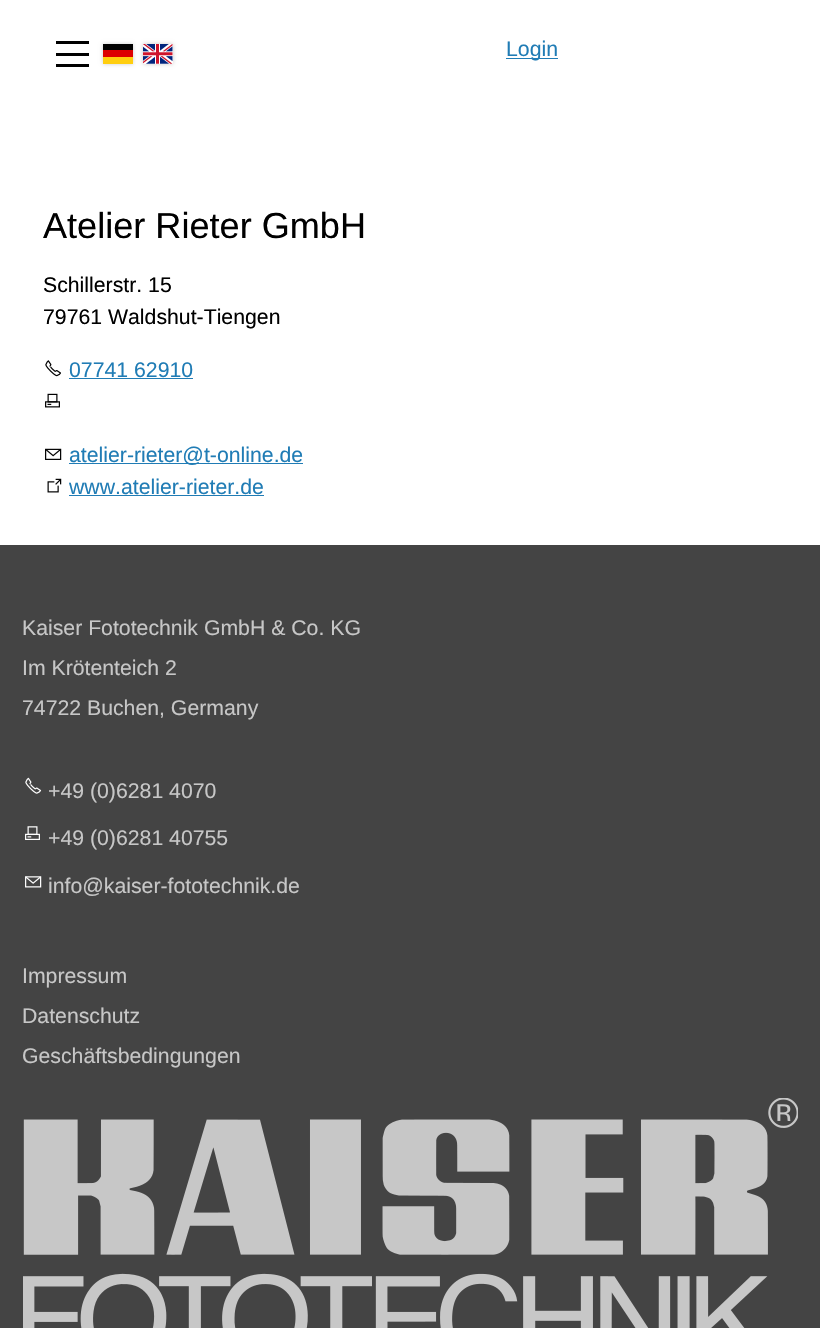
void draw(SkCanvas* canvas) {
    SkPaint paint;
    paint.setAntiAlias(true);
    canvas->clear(0xFFFFFFFF);
    paint.setColor(0xFF000000);
    canvas->drawRect(SkRect::MakeXYWH(56, 41, 33, 3), paint);
    canvas->drawRect(SkRect::MakeXYWH(56, 53, 33, 3), paint);
    canvas->drawRect(SkRect::MakeXYWH(56, 64, 33, 3), paint);
    paint.setColor(0x33000000);
    paint.setMaskFilter(SkMaskFilter::MakeBlur(kNormal_SkBlurStyle, 2));
    canvas->drawRect(SkRect::MakeXYWH(103, 44, 30, 20), paint);
    paint.setMaskFilter(nullptr);
    paint.setColor(0xFF000000);
    canvas->drawRect(SkRect::MakeXYWH(103, 44, 30, 6), paint);
    paint.setColor(0xFFDD0000);
    canvas->drawRect(SkRect::MakeXYWH(103, 50, 30, 7), paint);
    paint.setColor(0xFFFFCE0F);
    canvas->drawRect(SkRect::MakeXYWH(103, 57, 30, 7), paint);
    paint.setColor(0x33000000);
    paint.setMaskFilter(SkMaskFilter::MakeBlur(kNormal_SkBlurStyle, 2));
    canvas->drawRect(SkRect::MakeXYWH(143, 44, 30, 20), paint);
    paint.setMaskFilter(nullptr);
    paint.setColor(0xFFFFFFFF);
    canvas->drawRect(SkRect::MakeXYWH(143, 44, 30, 20), paint);
    canvas->drawImageRect(SkImages::DeferredFromEncodedData(SkData::MakeFromFileName("img1.png")), SkRect::MakeXYWH(143, 44, 30, 20), SkSamplingOptions());
    paint.setColor(0xFF207CB5);
    canvas->drawRect(SkRect::MakeXYWH(506, 58, 52, 1), paint);
    SkFont font1(fontMgr->matchFamilyStyle("Liberation Sans", SkFontStyle::Normal()), 21.25f);
    font1.setSubpixel(true);
    canvas->drawString("Login", 506, 56, font1, paint);
    SkFont font2(fontMgr->matchFamilyStyle("Liberation Sans", SkFontStyle::Normal()), 36.1f);
    font2.setSubpixel(true);
    paint.setColor(0xFF000000);
    canvas->drawString("Atelier Rieter GmbH", 43, 238, font2, paint);
    canvas->drawString("Schillerstr. 15", 43, 292, font1, paint);
    canvas->drawString("79761 Waldshut-Tiengen", 43, 324, font1, paint);
    canvas->drawImageRect(SkImages::DeferredFromEncodedData(SkData::MakeFromFileName("img2.png")), SkRect::MakeXYWH(45, 360, 16, 17), SkSamplingOptions());
    paint.setColor(0xFF207CB5);
    canvas->drawString("07741 62910", 69, 377, font1, paint);
    canvas->drawRect(SkRect::MakeXYWH(69, 378, 124, 1), paint);
    canvas->drawImageRect(SkImages::DeferredFromEncodedData(SkData::MakeFromFileName("img3.png")), SkRect::MakeXYWH(45, 393, 15, 15), SkSamplingOptions());
    canvas->drawImageRect(SkImages::DeferredFromEncodedData(SkData::MakeFromFileName("img4.png")), SkRect::MakeXYWH(45, 448, 17, 12), SkSamplingOptions());
    canvas->drawRect(SkRect::MakeXYWH(69, 463, 234, 1), paint);
    canvas->drawString("atelier-rieter@t-online.de", 69, 462, font1, paint);
    canvas->drawImageRect(SkImages::DeferredFromEncodedData(SkData::MakeFromFileName("img5.png")), SkRect::MakeXYWH(47, 478, 15, 15), SkSamplingOptions());
    canvas->drawString("www.atelier-rieter.de", 69, 494, font1, paint);
    canvas->drawRect(SkRect::MakeXYWH(69, 495, 195, 1), paint);
    paint.setColor(0xFF444444);
    canvas->drawRect(SkRect::MakeXYWH(0, 545, 820, 783), paint);
    paint.setColor(0xFFC7C7C7);
    canvas->drawString("Kaiser Fototechnik GmbH & Co. KG", 22, 635, font1, paint);
    canvas->drawString("Im Krötenteich 2", 22, 675, font1, paint);
    canvas->drawString("74722 Buchen, Germany", 22, 715, font1, paint);
    canvas->drawImageRect(SkImages::DeferredFromEncodedData(SkData::MakeFromFileName("img6.png")), SkRect::MakeXYWH(25, 777, 17, 17), SkSamplingOptions());
    canvas->drawString("+49 (0)6281 4070", 48, 798, font1, paint);
    canvas->drawImageRect(SkImages::DeferredFromEncodedData(SkData::MakeFromFileName("img7.png")), SkRect::MakeXYWH(25, 826, 15, 14), SkSamplingOptions());
    canvas->drawString("+49 (0)6281 40755", 48, 845, font1, paint);
    canvas->drawImageRect(SkImages::DeferredFromEncodedData(SkData::MakeFromFileName("img8.png")), SkRect::MakeXYWH(25, 876, 17, 12), SkSamplingOptions());
    canvas->drawString("info@kaiser-fototechnik.de", 48, 893, font1, paint);
    canvas->drawString("Impressum", 22, 983, font1, paint);
    canvas->drawString("Datenschutz", 22, 1023, font1, paint);
    canvas->drawString("Geschäftsbedingungen", 22, 1063, font1, paint);
    canvas->drawImageRect(SkImages::DeferredFromEncodedData(SkData::MakeFromFileName("img9.png")), SkRect::MakeXYWH(23, 1098, 775, 230), SkSamplingOptions());
}
